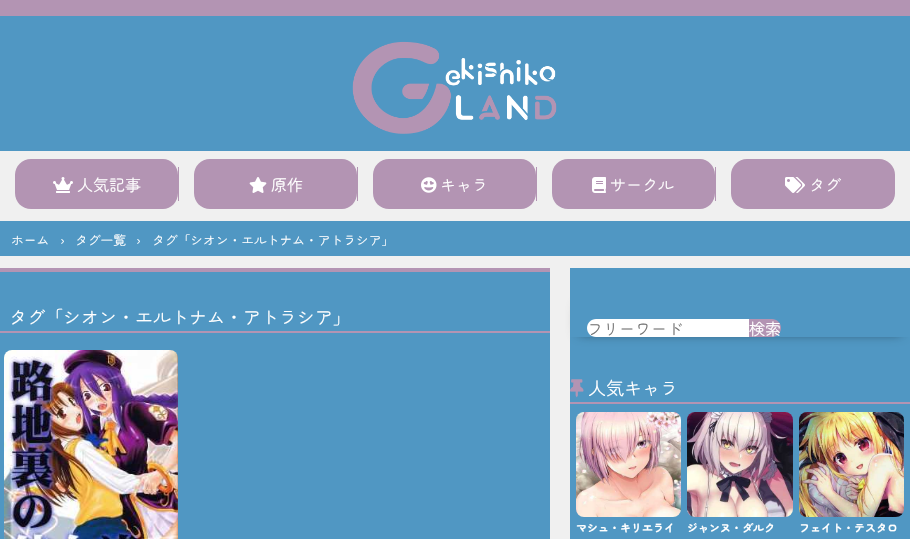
void draw(SkCanvas* canvas) {
    SkPaint paint;
    paint.setAntiAlias(true);
    canvas->clear(0xFFF0F0F0);
    paint.setColor(0xFF5097C3);
    canvas->drawRect(SkRect::MakeXYWH(0, 16, 910, 135), paint);
    paint.setColor(0xFFB394B3);
    canvas->drawRect(SkRect::MakeXYWH(0, 0, 910, 16), paint);
    canvas->drawImageRect(SkImages::DeferredFromEncodedData(SkData::MakeFromFileName("img1.png")), SkRect::MakeXYWH(352, 41, 205, 93), SkSamplingOptions());
    canvas->drawPath(SkPathBuilder().moveTo(31, 159).lineTo(163, 159).cubicTo(171, 159, 178, 166, 178, 175).lineTo(178, 193).cubicTo(178, 202, 171, 209, 163, 209).lineTo(31, 209).cubicTo(22, 209, 15, 202, 15, 193).lineTo(15, 175).cubicTo(15, 166, 22, 159, 31, 159).close().detach(), paint);
    canvas->drawRect(SkRect::MakeXYWH(178, 167, 1, 34), paint);
    canvas->drawImageRect(SkImages::DeferredFromEncodedData(SkData::MakeFromFileName("img2.png")), SkRect::MakeXYWH(53, 177, 20, 16), SkSamplingOptions());
    SkFont font1(fontMgr->matchFamilyStyle("Zen Maru Gothic", SkFontStyle::Normal()), 16);
    font1.setSubpixel(true);
    paint.setColor(0xFFFFFFFF);
    canvas->drawString("人気記事", 77, 191, font1, paint);
    paint.setColor(0xFFB394B3);
    canvas->drawPath(SkPathBuilder().moveTo(210, 159).lineTo(342, 159).cubicTo(350, 159, 357, 166, 357, 175).lineTo(357, 193).cubicTo(357, 202, 350, 209, 342, 209).lineTo(210, 209).cubicTo(201, 209, 194, 202, 194, 193).lineTo(194, 175).cubicTo(194, 166, 201, 159, 210, 159).close().detach(), paint);
    canvas->drawRect(SkRect::MakeXYWH(357, 167, 1, 34), paint);
    canvas->drawImageRect(SkImages::DeferredFromEncodedData(SkData::MakeFromFileName("img3.png")), SkRect::MakeXYWH(249, 177, 18, 16), SkSamplingOptions());
    paint.setColor(0xFFFFFFFF);
    canvas->drawString("原作", 271, 191, font1, paint);
    paint.setColor(0xFFB394B3);
    canvas->drawPath(SkPathBuilder().moveTo(389, 159).lineTo(521, 159).cubicTo(529, 159, 536, 166, 536, 175).lineTo(536, 193).cubicTo(536, 202, 529, 209, 521, 209).lineTo(389, 209).cubicTo(380, 209, 373, 202, 373, 193).lineTo(373, 175).cubicTo(373, 166, 380, 159, 389, 159).close().detach(), paint);
    canvas->drawRect(SkRect::MakeXYWH(536, 167, 1, 34), paint);
    canvas->drawImageRect(SkImages::DeferredFromEncodedData(SkData::MakeFromFileName("img4.png")), SkRect::MakeXYWH(421, 177, 16, 16), SkSamplingOptions());
    paint.setColor(0xFFFFFFFF);
    canvas->drawString("キャラ", 440, 191, font1, paint);
    paint.setColor(0xFFB394B3);
    canvas->drawPath(SkPathBuilder().moveTo(568, 159).lineTo(700, 159).cubicTo(708, 159, 715, 166, 715, 175).lineTo(715, 193).cubicTo(715, 202, 708, 209, 700, 209).lineTo(568, 209).cubicTo(559, 209, 552, 202, 552, 193).lineTo(552, 175).cubicTo(552, 166, 559, 159, 568, 159).close().detach(), paint);
    canvas->drawRect(SkRect::MakeXYWH(715, 167, 1, 34), paint);
    canvas->drawImageRect(SkImages::DeferredFromEncodedData(SkData::MakeFromFileName("img5.png")), SkRect::MakeXYWH(592, 177, 14, 16), SkSamplingOptions());
    paint.setColor(0xFFFFFFFF);
    canvas->drawString("サークル", 610, 191, font1, paint);
    paint.setColor(0xFFB394B3);
    canvas->drawRoundRect(SkRect::MakeXYWH(731, 159, 164, 50), 16, 16, paint);
    canvas->drawImageRect(SkImages::DeferredFromEncodedData(SkData::MakeFromFileName("img6.png")), SkRect::MakeXYWH(785, 177, 20, 16), SkSamplingOptions());
    paint.setColor(0xFFFFFFFF);
    canvas->drawString("タグ", 809, 191, font1, paint);
    paint.setColor(0xFF5097C3);
    canvas->drawRect(SkRect::MakeXYWH(0, 221, 910, 35), paint);
    SkFont font2(fontMgr->matchFamilyStyle("Zen Maru Gothic", SkFontStyle::Normal()), 12.75f);
    font2.setSubpixel(true);
    paint.setColor(0xFFFFFFFF);
    canvas->drawString("ホーム", 11, 245, font2, paint);
    canvas->drawString("›", 60, 245, font2, paint);
    canvas->drawString("タグ一覧", 75, 245, font2, paint);
    canvas->drawString("›", 136, 245, font2, paint);
    canvas->drawString("タグ「シオン・エルトナム・アトラシア」", 152, 245, font2, paint);
    paint.setColor(0xFF5097C3);
    canvas->drawRect(SkRect::MakeXYWH(0, 272, 550, 267), paint);
    paint.setColor(0xFFB394B3);
    canvas->drawRect(SkRect::MakeXYWH(0, 268, 550, 4), paint);
    canvas->drawRect(SkRect::MakeXYWH(0, 331, 550, 2), paint);
    SkFont font3(fontMgr->matchFamilyStyle("Zen Maru Gothic", SkFontStyle::Normal()), 18);
    font3.setSubpixel(true);
    paint.setColor(0xFFFFFFFF);
    canvas->drawString("タグ「シオン・エルトナム・アトラシア」", 9, 324, font3, paint);
    canvas->drawImageRect(SkImages::DeferredFromEncodedData(SkData::MakeFromFileName("img7.png")), SkRect::MakeXYWH(4, 350, 174, 189), SkSamplingOptions());
    paint.setColor(0xFF5097C3);
    canvas->drawRect(SkRect::MakeXYWH(570, 268, 340, 271), paint);
    canvas->save();
    canvas->clipPath(SkPathBuilder(SkPathFillType::kEvenOdd).moveTo(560, 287).lineTo(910, 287).lineTo(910, 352).lineTo(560, 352).close().moveTo(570, 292).lineTo(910, 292).lineTo(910, 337).lineTo(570, 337).close().detach(), true);
    paint.setColor(0x99000000);
    paint.setMaskFilter(SkMaskFilter::MakeBlur(kNormal_SkBlurStyle, 6));
    canvas->drawRect(SkRect::MakeXYWH(579, 306, 322, 27), paint);
    paint.setMaskFilter(nullptr);
    canvas->restore();
    paint.setColor(0xFFFFFFFF);
    canvas->drawPath(SkPathBuilder().moveTo(596, 319).lineTo(749, 319).lineTo(749, 337).lineTo(596, 337).cubicTo(591, 337, 587, 333, 587, 328).cubicTo(587, 323, 591, 319, 596, 319).close().detach(), paint);
    paint.setColor(0xFF757575);
    canvas->drawString("フリーワード", 587, 335, font1, paint);
    paint.setColor(0xFFB394B3);
    canvas->drawPath(SkPathBuilder().moveTo(749, 319).lineTo(772, 319).cubicTo(777, 319, 781, 323, 781, 328).cubicTo(781, 333, 777, 337, 772, 337).lineTo(749, 337).close().detach(), paint);
    paint.setColor(0xFFFFFFFF);
    canvas->drawString("検索", 749, 335, font1, paint);
    paint.setColor(0xFFB394B3);
    canvas->drawRect(SkRect::MakeXYWH(570, 402, 340, 2), paint);
    canvas->drawImageRect(SkImages::DeferredFromEncodedData(SkData::MakeFromFileName("img8.png")), SkRect::MakeXYWH(570, 379, 14, 19), SkSamplingOptions());
    paint.setColor(0xFFFFFFFF);
    canvas->drawString("人気キャラ", 588, 395, font3, paint);
    canvas->drawImageRect(SkImages::DeferredFromEncodedData(SkData::MakeFromFileName("img9.png")), SkRect::MakeXYWH(576, 412, 105, 105), SkSamplingOptions());
    SkFont font4(fontMgr->matchFamilyStyle("Zen Maru Gothic", SkFontStyle::Bold()), 11);
    font4.setSubpixel(true);
    canvas->drawString("マシュ・キリエライ", 576, 532, font4, paint);
    canvas->drawImageRect(SkImages::DeferredFromEncodedData(SkData::MakeFromFileName("img10.png")), SkRect::MakeXYWH(687, 412, 106, 105), SkSamplingOptions());
    canvas->drawString("ジャンヌ・ダルク", 687, 532, font4, paint);
    canvas->drawImageRect(SkImages::DeferredFromEncodedData(SkData::MakeFromFileName("img11.png")), SkRect::MakeXYWH(799, 412, 105, 105), SkSamplingOptions());
    canvas->drawString("フェイト・テスタロ", 799, 532, font4, paint);
}
